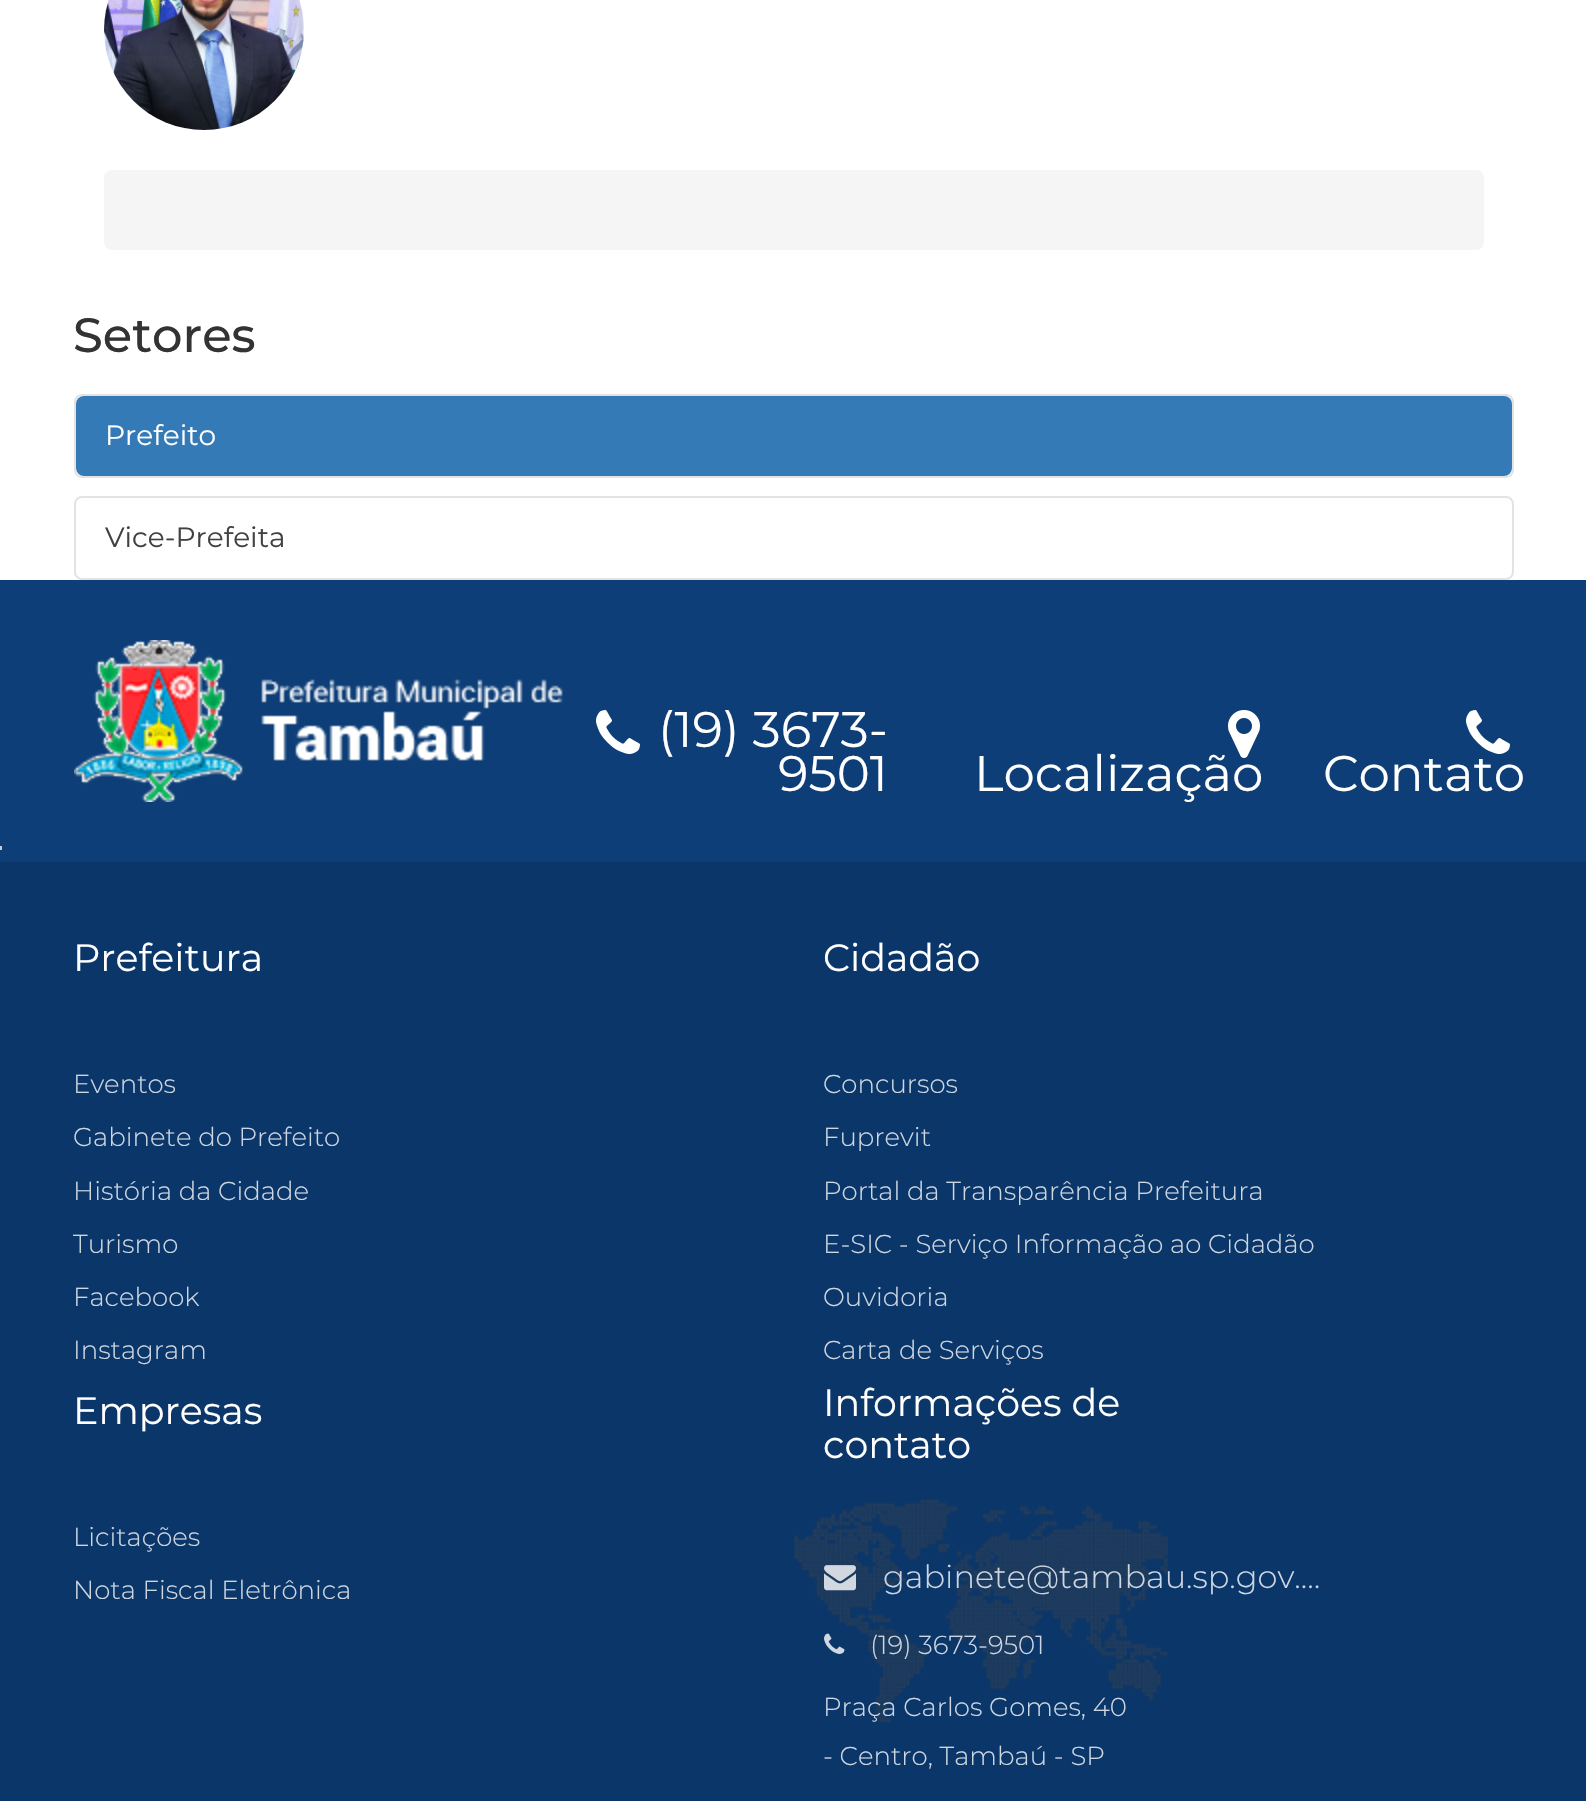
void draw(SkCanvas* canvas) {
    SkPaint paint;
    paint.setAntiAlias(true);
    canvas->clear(0xFFFFFFFF);
    canvas->drawImageRect(SkImages::DeferredFromEncodedData(SkData::MakeFromFileName("img1.png")), SkRect::MakeXYWH(104, 0, 200, 130), SkSamplingOptions());
    paint.setColor(0xFFF5F5F5);
    canvas->drawRoundRect(SkRect::MakeXYWH(104, 170, 1380, 80), 8, 8, paint);
    SkFont font1(fontMgr->matchFamilyStyle("Montserrat", SkFontStyle(500, SkFontStyle::kNormal_Width, SkFontStyle::kUpright_Slant)), 48);
    font1.setSubpixel(true);
    paint.setColor(0xFF333333);
    canvas->drawString("Setores", 73, 352, font1, paint);
    paint.setStyle(SkPaint::kStroke_Style);
    paint.setStrokeWidth(2);
    paint.setColor(0xFFE3E3E3);
    canvas->drawRoundRect(SkRect::MakeXYWH(75, 395, 1438, 82), 7, 7, paint);
    paint.setStyle(SkPaint::kFill_Style);
    paint.setColor(0xFF337AB7);
    canvas->drawRoundRect(SkRect::MakeXYWH(76, 396, 1436, 80), 8, 8, paint);
    SkFont font2(fontMgr->matchFamilyStyle("Montserrat", SkFontStyle::Normal()), 28);
    font2.setSubpixel(true);
    paint.setColor(0xFFFFFFFF);
    canvas->drawString("Prefeito", 105, 445, font2, paint);
    paint.setStyle(SkPaint::kStroke_Style);
    paint.setColor(0xFFE3E3E3);
    canvas->drawRoundRect(SkRect::MakeXYWH(75, 497, 1438, 82), 7, 7, paint);
    paint.setStyle(SkPaint::kFill_Style);
    paint.setColor(0xFF414141);
    canvas->drawString("Vice-Prefeita", 105, 547, font2, paint);
    paint.setColor(0xFF0D3E77);
    canvas->drawRect(SkRect::MakeXYWH(0, 580, 1586, 282), paint);
    paint.setColor(0xFF234476);
    canvas->drawRect(SkRect::MakeXYWH(0, 846, 2, 4), paint);
    paint.setColor(0xFFD3DAE4);
    canvas->drawPath(SkPathBuilder().moveTo(0, 846).lineTo(2, 846).lineTo(0, 848).close().detach(), paint);
    paint.setColor(0xCCFFFFFF);
    canvas->drawPath(SkPathBuilder().moveTo(2, 846).lineTo(2, 850).lineTo(0, 848).close().detach(), paint);
    canvas->drawPath(SkPathBuilder().moveTo(2, 850).lineTo(0, 850).lineTo(0, 848).close().detach(), paint);
    canvas->drawImageRect(SkImages::DeferredFromEncodedData(SkData::MakeFromFileName("img2.png")), SkRect::MakeXYWH(74, 640, 489, 162), SkSamplingOptions());
    canvas->drawImageRect(SkImages::DeferredFromEncodedData(SkData::MakeFromFileName("img3.png")), SkRect::MakeXYWH(596, 710, 44, 44), SkSamplingOptions());
    SkFont font3(fontMgr->matchFamilyStyle("Montserrat", SkFontStyle::Normal()), 50);
    font3.setSubpixel(true);
    paint.setColor(0xFFFFFFFF);
    canvas->drawString("(19) 3673-", 658, 747, font3, paint);
    canvas->drawString("9501", 778, 791, font3, paint);
    canvas->drawString("Localização", 974, 791, font3, paint);
    canvas->drawImageRect(SkImages::DeferredFromEncodedData(SkData::MakeFromFileName("img4.png")), SkRect::MakeXYWH(1228, 710, 32, 48), SkSamplingOptions());
    canvas->drawImageRect(SkImages::DeferredFromEncodedData(SkData::MakeFromFileName("img3.png")), SkRect::MakeXYWH(1466, 710, 44, 44), SkSamplingOptions());
    canvas->drawString("Contato", 1323, 791, font3, paint);
    paint.setColor(0xFF0B3669);
    canvas->drawRect(SkRect::MakeXYWH(0, 862, 1586, 939), paint);
    SkFont font4(fontMgr->matchFamilyStyle("Montserrat", SkFontStyle::Normal()), 38);
    font4.setSubpixel(true);
    paint.setColor(0xFFFFFFFF);
    canvas->drawString("Prefeitura", 73, 971, font4, paint);
    SkFont font5(fontMgr->matchFamilyStyle("Montserrat", SkFontStyle(300, SkFontStyle::kNormal_Width, SkFontStyle::kUpright_Slant)), 26);
    font5.setSubpixel(true);
    paint.setColor(0xFFCED7E1);
    canvas->drawString("Eventos", 73, 1093, font5, paint);
    canvas->drawString("Gabinete do Prefeito", 73, 1146, font5, paint);
    canvas->drawString("História da Cidade", 73, 1200, font5, paint);
    canvas->drawString("Turismo", 73, 1253, font5, paint);
    canvas->drawString("Facebook", 73, 1306, font5, paint);
    canvas->drawString("Instagram", 73, 1359, font5, paint);
    paint.setColor(0xFFFFFFFF);
    canvas->drawString("Cidadão", 823, 971, font4, paint);
    paint.setColor(0xFFCED7E1);
    canvas->drawString("Concursos", 823, 1093, font5, paint);
    canvas->drawString("Fuprevit", 823, 1146, font5, paint);
    canvas->drawString("Portal da Transparência Prefeitura", 823, 1200, font5, paint);
    canvas->drawString("E-SIC - Serviço Informação ao Cidadão", 823, 1253, font5, paint);
    canvas->drawString("Ouvidoria", 823, 1306, font5, paint);
    canvas->drawString("Carta de Serviços", 823, 1359, font5, paint);
    paint.setColor(0xFFFFFFFF);
    canvas->drawString("Empresas", 73, 1424, font4, paint);
    paint.setColor(0xFFCED7E1);
    canvas->drawString("Licitações", 73, 1546, font5, paint);
    canvas->drawString("Nota Fiscal Eletrônica", 73, 1599, font5, paint);
    canvas->drawImageRect(SkImages::DeferredFromEncodedData(SkData::MakeFromFileName("img5.png")), SkRect::MakeXYWH(794, 1499, 374, 224), SkSamplingOptions());
    paint.setColor(0xFFFFFFFF);
    canvas->drawString("Informações de", 823, 1416, font4, paint);
    canvas->drawString("contato", 823, 1458, font4, paint);
    canvas->drawImageRect(SkImages::DeferredFromEncodedData(SkData::MakeFromFileName("img6.png")), SkRect::MakeXYWH(824, 1565, 32, 26), SkSamplingOptions());
    SkFont font6(fontMgr->matchFamilyStyle("Montserrat", SkFontStyle(300, SkFontStyle::kNormal_Width, SkFontStyle::kUpright_Slant)), 32);
    font6.setSubpixel(true);
    paint.setColor(0xFFCED7E1);
    canvas->drawString("gabinete@tambau.sp.gov.…", 883, 1588, font6, paint);
    canvas->drawImageRect(SkImages::DeferredFromEncodedData(SkData::MakeFromFileName("img7.png")), SkRect::MakeXYWH(824, 1633, 21, 21), SkSamplingOptions());
    canvas->drawString("(19) 3673-9501", 870, 1654, font5, paint);
    canvas->drawString("Praça Carlos Gomes, 40", 823, 1716, font5, paint);
    canvas->drawString("- Centro, Tambaú - SP", 823, 1765, font5, paint);
}
